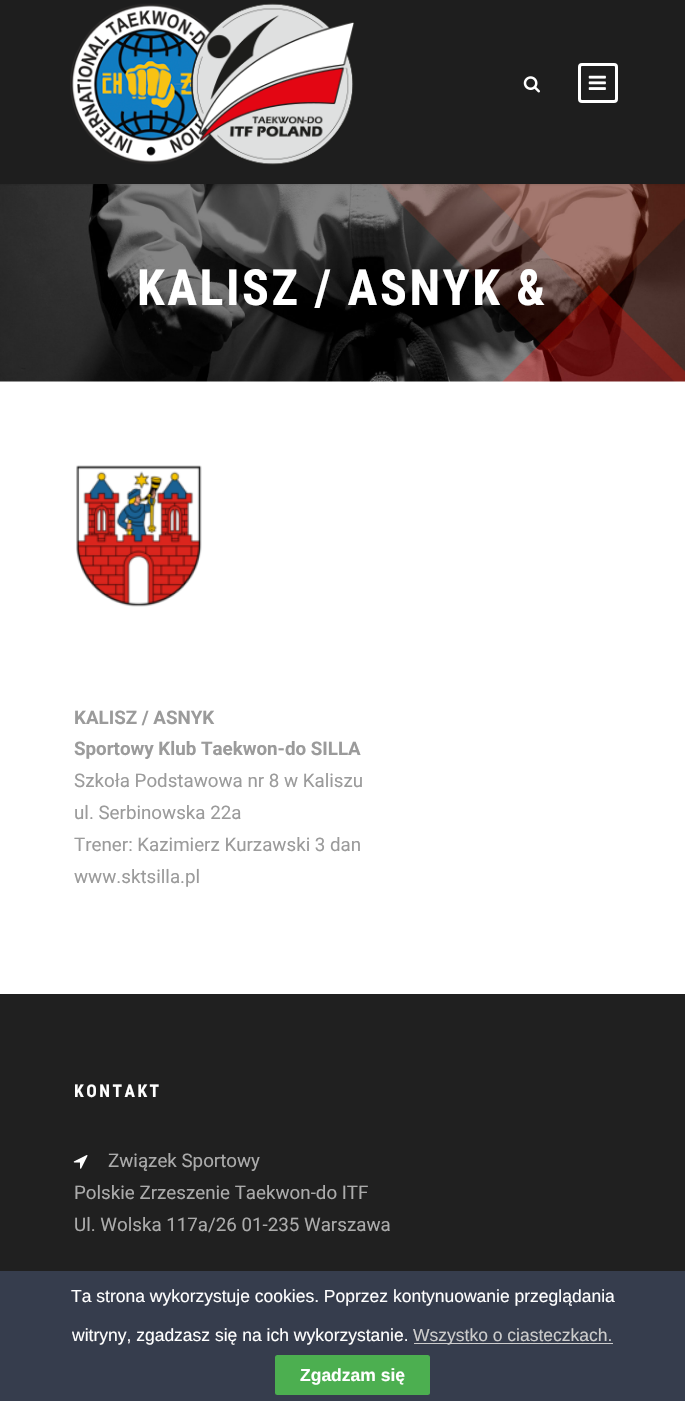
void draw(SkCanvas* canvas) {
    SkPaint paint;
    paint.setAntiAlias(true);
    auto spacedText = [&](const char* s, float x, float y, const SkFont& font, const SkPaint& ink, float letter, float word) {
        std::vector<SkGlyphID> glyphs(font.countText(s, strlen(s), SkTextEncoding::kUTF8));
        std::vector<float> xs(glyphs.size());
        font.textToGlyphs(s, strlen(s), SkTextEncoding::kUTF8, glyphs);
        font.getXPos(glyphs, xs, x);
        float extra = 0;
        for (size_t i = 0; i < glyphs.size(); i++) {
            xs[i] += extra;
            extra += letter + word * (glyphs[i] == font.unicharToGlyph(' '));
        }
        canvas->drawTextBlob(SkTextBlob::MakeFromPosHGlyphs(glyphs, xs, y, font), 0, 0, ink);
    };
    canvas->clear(0xFFFFFFFF);
    canvas->drawImageRect(SkImages::DeferredFromEncodedData(SkData::MakeFromFileName("img4.png")), SkRect::MakeXYWH(0, 184, 685, 198), SkSamplingOptions());
    paint.setColor(0x1A000000);
    paint.setMaskFilter(SkMaskFilter::MakeBlur(kNormal_SkBlurStyle, 1));
    canvas->drawRect(SkRect::MakeXYWH(0, -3, 685, 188), paint);
    paint.setMaskFilter(nullptr);
    paint.setColor(0xFF1E1E1E);
    canvas->drawRect(SkRect::MakeXYWH(0, 0, 685, 184), paint);
    canvas->drawImageRect(SkImages::DeferredFromEncodedData(SkData::MakeFromFileName("img1.png")), SkRect::MakeXYWH(70, 3, 285, 162), SkSamplingOptions());
    canvas->drawImageRect(SkImages::DeferredFromEncodedData(SkData::MakeFromFileName("img2.png")), SkRect::MakeXYWH(523, 76, 17, 17), SkSamplingOptions());
    paint.setStyle(SkPaint::kStroke_Style);
    paint.setStrokeWidth(3);
    paint.setColor(0xFFFFFFFF);
    canvas->drawRoundRect(SkRect::MakeXYWH(579.5f, 64.5f, 37, 37), 2.5f, 2.5f, paint);
    canvas->drawImageRect(SkImages::DeferredFromEncodedData(SkData::MakeFromFileName("img3.png")), SkRect::MakeXYWH(588, 75, 18, 15), SkSamplingOptions());
    SkFont font1(fontMgr->matchFamilyStyle("Roboto Condensed", SkFontStyle::Bold()), 50);
    font1.setSubpixel(true);
    paint.setStyle(SkPaint::kFill_Style);
    spacedText("KALISZ / ASNYK &", 137, 305, font1, paint, 2.5f, 0);
    canvas->drawImageRect(SkImages::DeferredFromEncodedData(SkData::MakeFromFileName("img5.png")), SkRect::MakeXYWH(76, 465, 126, 142), SkSamplingOptions());
    SkFont font2(fontMgr->matchFamilyStyle("Roboto", SkFontStyle::Bold()), 18.75f);
    font2.setSubpixel(true);
    paint.setColor(0xFF9B9B9B);
    canvas->drawString("KALISZ / ASNYK", 74, 724, font2, paint);
    canvas->drawString("Sportowy Klub Taekwon-do SILLA", 74, 755, font2, paint);
    SkFont font3(fontMgr->matchFamilyStyle("Roboto", SkFontStyle::Normal()), 18.75f);
    font3.setSubpixel(true);
    canvas->drawString("Szkoła Podstawowa nr 8 w Kaliszu", 74, 787, font3, paint);
    canvas->drawString("ul. Serbinowska 22a", 74, 819, font3, paint);
    canvas->drawString("Trener: Kazimierz Kurzawski 3 dan", 74, 851, font3, paint);
    canvas->drawString("www.sktsilla.pl", 74, 883, font3, paint);
    paint.setColor(0xFF202020);
    canvas->drawRect(SkRect::MakeXYWH(0, 994, 685, 277), paint);
    SkFont font4(fontMgr->matchFamilyStyle("Roboto Condensed", SkFontStyle::Bold()), 17.5f);
    font4.setSubpixel(true);
    paint.setColor(0xFFFFFFFF);
    spacedText("KONTAKT", 74, 1097, font4, paint, 2.5f, 0);
    canvas->drawImageRect(SkImages::DeferredFromEncodedData(SkData::MakeFromFileName("img6.png")), SkRect::MakeXYWH(73, 1155, 15, 14), SkSamplingOptions());
    paint.setColor(0xFFABABAB);
    canvas->drawString("Związek Sportowy", 108, 1167, font3, paint);
    canvas->drawString("Polskie Zrzeszenie Taekwon-do ITF", 74, 1199, font3, paint);
    canvas->drawString("Ul. Wolska 117a/26 01-235 Warszawa", 74, 1231, font3, paint);
    paint.setColor(0xFF363D4D);
    canvas->drawRect(SkRect::MakeXYWH(0, 1271, 685, 130), paint);
    SkFont font5(fontMgr->matchFamilyStyle("Liberation Sans", SkFontStyle::Normal()), 17.5f);
    font5.setSubpixel(true);
    paint.setColor(0xFFFFFFFF);
    canvas->drawString("Ta strona wykorzystuje cookies. Poprzez kontynuowanie przeglądania", 71, 1302, font5, paint);
    canvas->drawString("witryny, zgadzasz się na ich wykorzystanie.", 72, 1341, font5, paint);
    paint.setColor(0xFFCCCCCC);
    canvas->drawRect(SkRect::MakeXYWH(414, 1343, 199, 1), paint);
    canvas->drawString("Wszystko o ciasteczkach.", 413, 1341, font5, paint);
    paint.setColor(0xFF4CAF50);
    canvas->drawRoundRect(SkRect::MakeXYWH(275, 1355, 155, 40), 2.5f, 2.5f, paint);
    SkFont font6(fontMgr->matchFamilyStyle("Liberation Sans", SkFontStyle::Bold()), 17.5f);
    font6.setSubpixel(true);
    paint.setColor(0xFFFFFFFF);
    canvas->drawString("Zgadzam się", 300, 1381, font6, paint);
}
